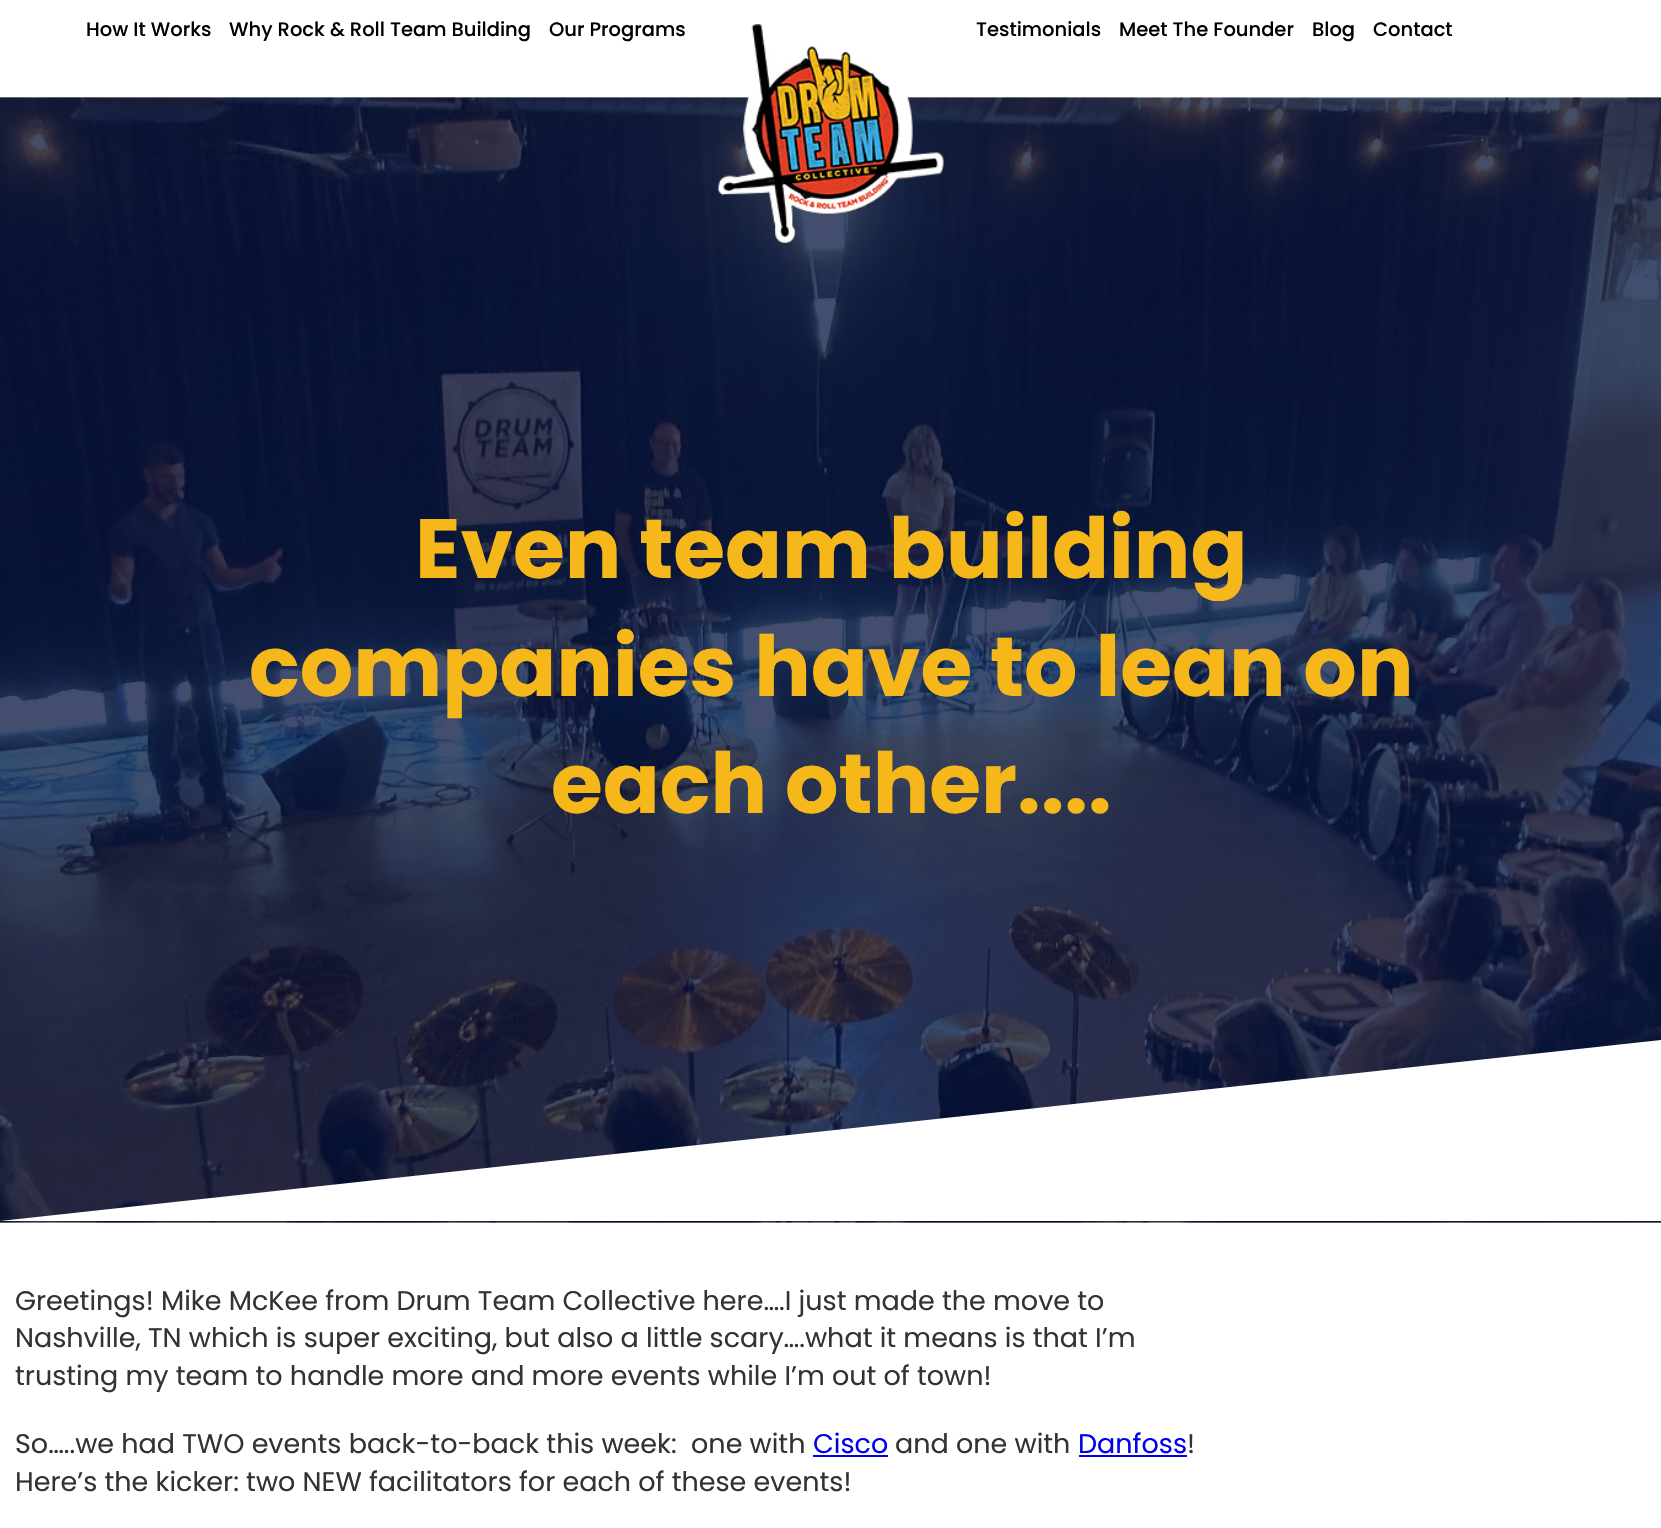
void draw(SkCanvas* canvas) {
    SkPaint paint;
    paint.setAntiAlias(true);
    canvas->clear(0xFFFFFFFF);
    SkFont font1(fontMgr->matchFamilyStyle("Poppins", SkFontStyle(500, SkFontStyle::kNormal_Width, SkFontStyle::kUpright_Slant)), 19.5f);
    font1.setSubpixel(true);
    paint.setColor(0xFF000000);
    canvas->drawString("How It Works", 86, 36, font1, paint);
    canvas->drawString("Why Rock & Roll Team Building", 229, 36, font1, paint);
    canvas->drawString("Our Programs", 549, 36, font1, paint);
    canvas->drawImageRect(SkImages::DeferredFromEncodedData(SkData::MakeFromFileName("img2.png")), SkRect::MakeXYWH(0, 97, 1661, 1126), SkSamplingOptions());
    canvas->drawImageRect(SkImages::DeferredFromEncodedData(SkData::MakeFromFileName("img1.png")), SkRect::MakeXYWH(718, 24, 226, 219), SkSamplingOptions());
    canvas->drawString("Testimonials", 976, 36, font1, paint);
    canvas->drawString("Meet The Founder", 1119, 36, font1, paint);
    canvas->drawString("Blog", 1312, 36, font1, paint);
    canvas->drawString("Contact", 1373, 36, font1, paint);
    SkFont font2(fontMgr->matchFamilyStyle("Poppins", SkFontStyle::Bold()), 84);
    font2.setSubpixel(true);
    paint.setColor(0xFFF6B71A);
    canvas->drawString("Even team building", 415, 578, font2, paint);
    canvas->drawString("companies have to lean on", 249, 696, font2, paint);
    canvas->drawString("each other....", 551, 813, font2, paint);
    paint.setColor(0xFFFFFFFF);
    canvas->drawPath(SkPathBuilder().moveTo(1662, 1221).lineTo(0, 1221).lineTo(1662, 1040).close().detach(), paint);
    SkFont font3(fontMgr->matchFamilyStyle("Poppins", SkFontStyle::Normal()), 27);
    font3.setSubpixel(true);
    paint.setColor(0xFF333333);
    canvas->drawString("Greetings! Mike McKee from Drum Team Collective here….I just made the move to", 15, 1310, font3, paint);
    canvas->drawString("Nashville, TN which is super exciting, but also a little scary….what it means is that I’m", 15, 1347, font3, paint);
    canvas->drawString("trusting my team to handle more and more events while I’m out of town!", 15, 1385, font3, paint);
    canvas->drawString("So…..we had TWO events back-to-back this week:  one with", 15, 1453, font3, paint);
    paint.setColor(0xFF0000EE);
    canvas->drawString("Cisco", 813, 1453, font3, paint);
    canvas->drawRect(SkRect::MakeXYWH(813, 1455, 75, 2), paint);
    paint.setColor(0xFF333333);
    canvas->drawString("and one with", 895, 1453, font3, paint);
    paint.setColor(0xFF0000EE);
    canvas->drawString("Danfoss", 1078, 1453, font3, paint);
    canvas->drawRect(SkRect::MakeXYWH(1079, 1455, 108, 2), paint);
    paint.setColor(0xFF333333);
    canvas->drawString("!", 1187, 1453, font3, paint);
    canvas->drawString("Here’s the kicker: two NEW facilitators for each of these events!", 15, 1491, font3, paint);
}
